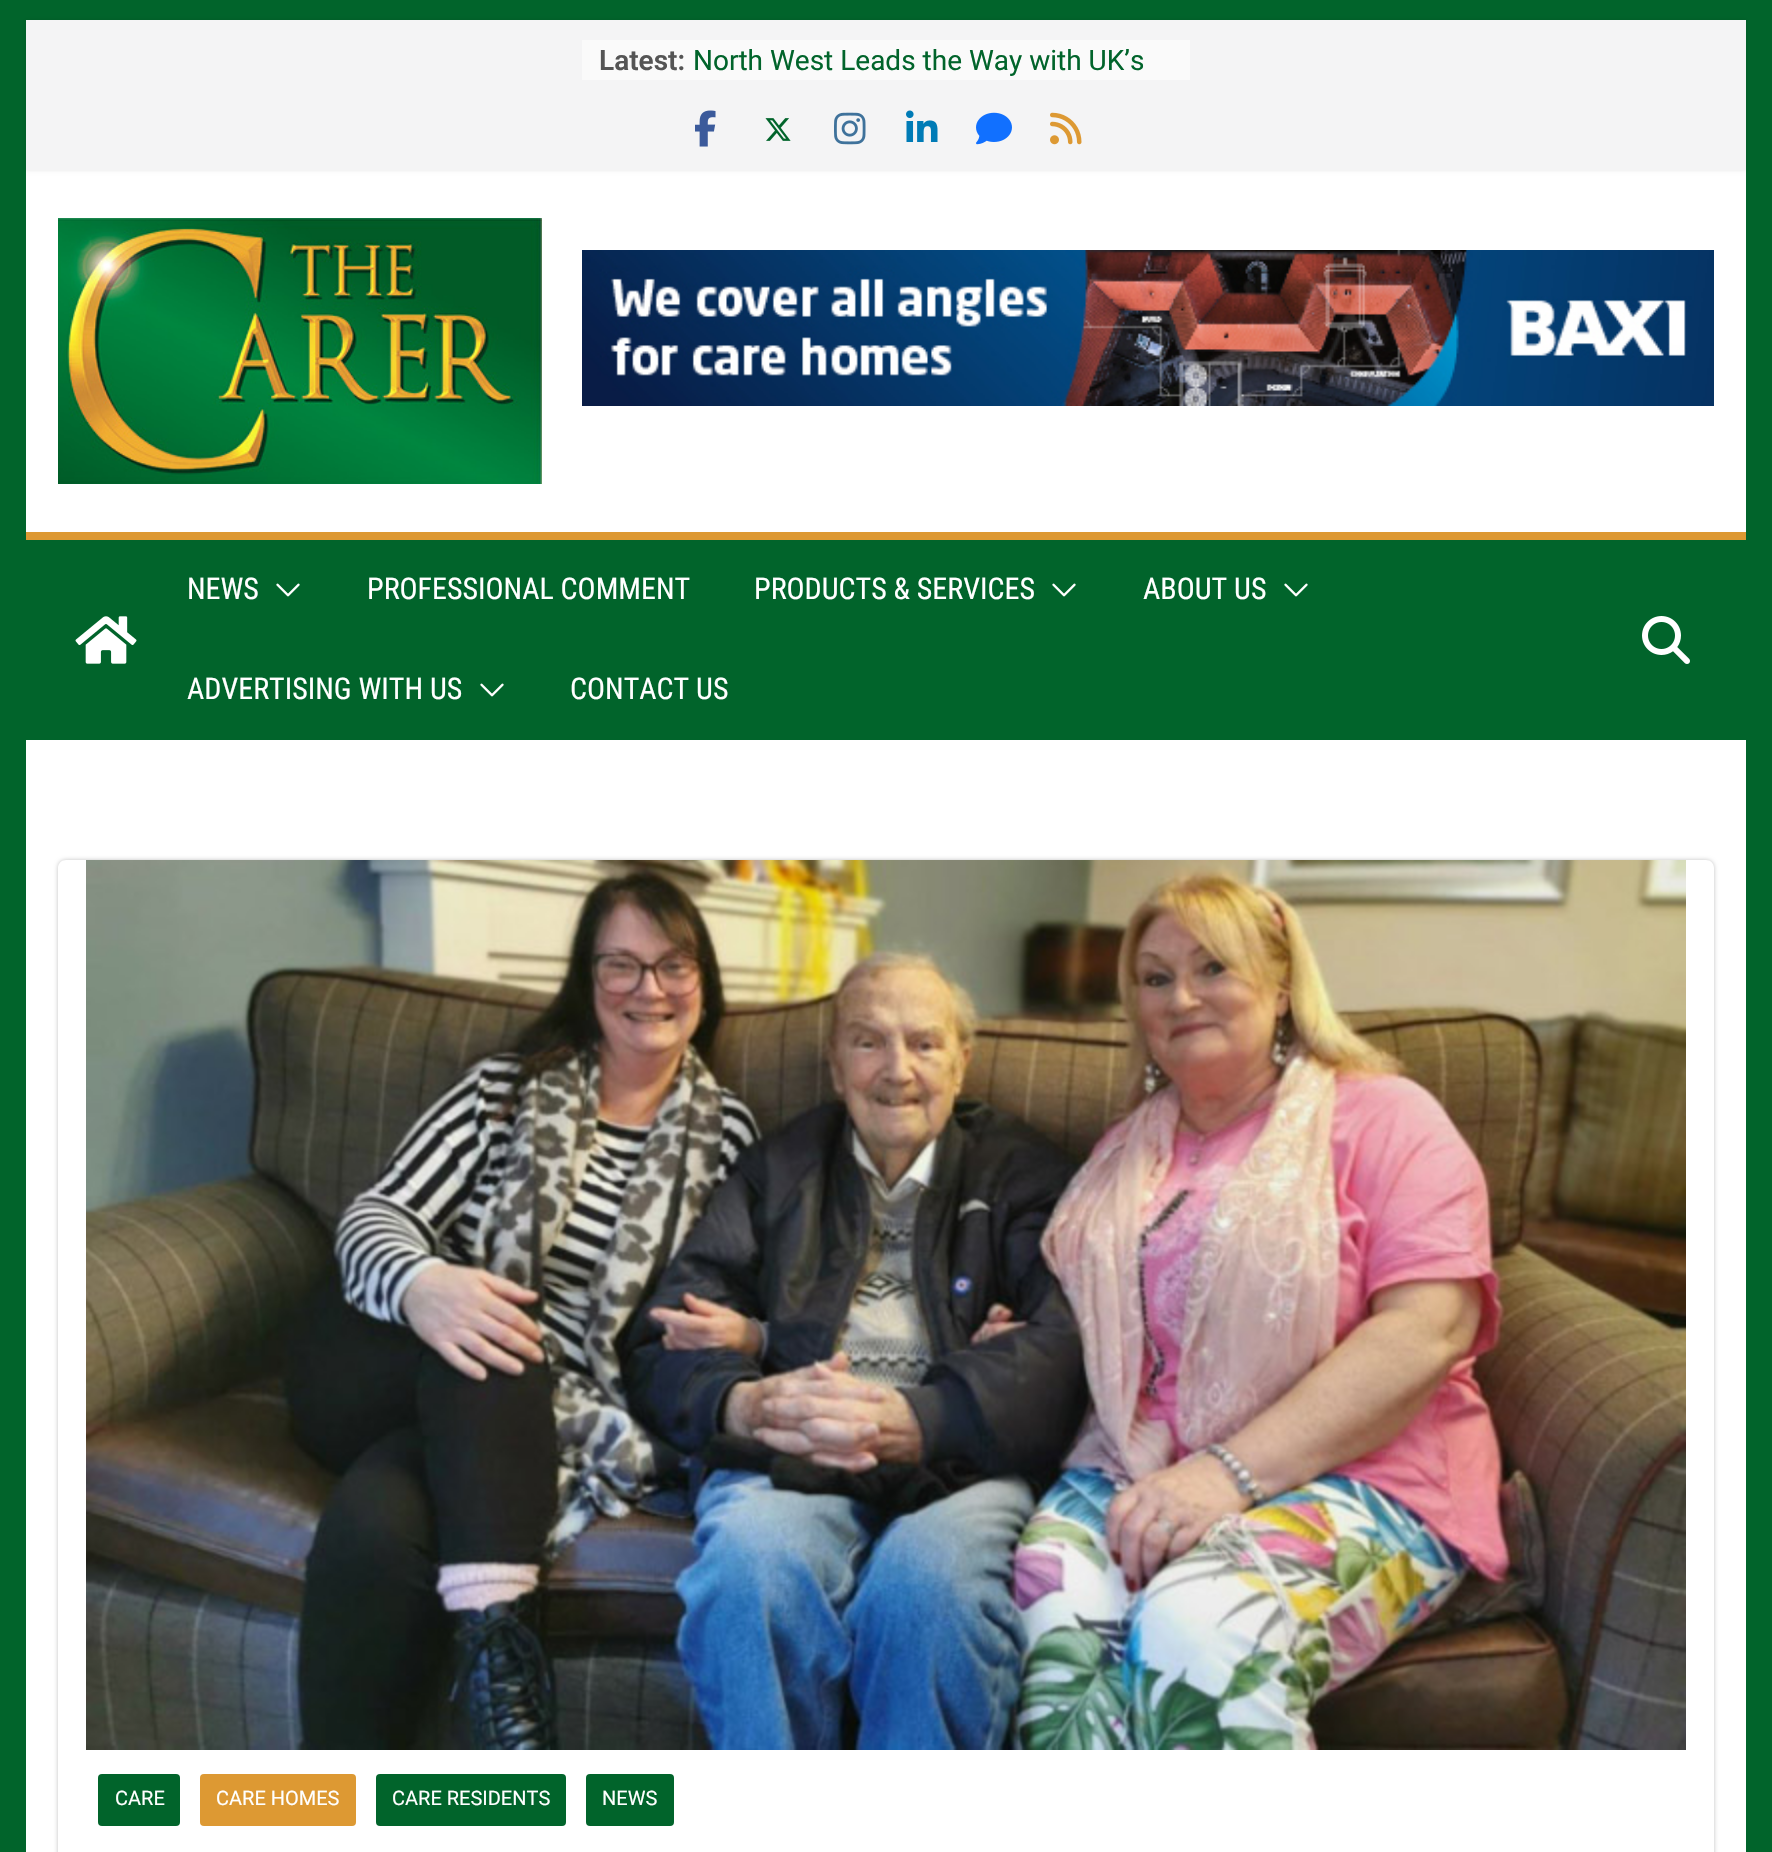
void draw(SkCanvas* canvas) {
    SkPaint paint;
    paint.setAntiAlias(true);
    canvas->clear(0xFF01642B);
    paint.setColor(0xFFFFFFFF);
    canvas->drawRect(SkRect::MakeXYWH(26, 170, 1720, 362), paint);
    paint.setColor(0x1A000000);
    paint.setMaskFilter(SkMaskFilter::MakeBlur(kNormal_SkBlurStyle, 2));
    canvas->drawRect(SkRect::MakeXYWH(26, 20, 1720, 150), paint);
    paint.setMaskFilter(nullptr);
    paint.setColor(0xFFF4F4F5);
    canvas->drawRect(SkRect::MakeXYWH(26, 20, 1720, 150), paint);
    paint.setColor(0xFFFAFAFA);
    canvas->drawRect(SkRect::MakeXYWH(582, 40, 608, 40), paint);
    SkFont font1(fontMgr->matchFamilyStyle("Roboto", SkFontStyle(600, SkFontStyle::kNormal_Width, SkFontStyle::kUpright_Slant)), 28);
    font1.setSubpixel(true);
    paint.setColor(0xFF555555);
    canvas->drawString("Latest:", 599, 70, font1, paint);
    SkFont font2(fontMgr->matchFamilyStyle("Roboto", SkFontStyle::Normal()), 28);
    font2.setSubpixel(true);
    paint.setColor(0xFF01642B);
    canvas->drawString("North West Leads the Way with UK’s", 693, 70, font2, paint);
    canvas->drawImageRect(SkImages::DeferredFromEncodedData(SkData::MakeFromFileName("img1.png")), SkRect::MakeXYWH(695, 110, 21, 37), SkSamplingOptions());
    canvas->drawImageRect(SkImages::DeferredFromEncodedData(SkData::MakeFromFileName("img2.png")), SkRect::MakeXYWH(765, 118, 26, 23), SkSamplingOptions());
    canvas->drawImageRect(SkImages::DeferredFromEncodedData(SkData::MakeFromFileName("img3.png")), SkRect::MakeXYWH(834, 112, 32, 33), SkSamplingOptions());
    canvas->drawImageRect(SkImages::DeferredFromEncodedData(SkData::MakeFromFileName("img4.png")), SkRect::MakeXYWH(906, 110, 32, 32), SkSamplingOptions());
    canvas->drawImageRect(SkImages::DeferredFromEncodedData(SkData::MakeFromFileName("img5.png")), SkRect::MakeXYWH(976, 112, 36, 33), SkSamplingOptions());
    canvas->drawImageRect(SkImages::DeferredFromEncodedData(SkData::MakeFromFileName("img6.png")), SkRect::MakeXYWH(1050, 112, 32, 33), SkSamplingOptions());
    canvas->drawImageRect(SkImages::DeferredFromEncodedData(SkData::MakeFromFileName("img7.png")), SkRect::MakeXYWH(58, 218, 484, 266), SkSamplingOptions());
    canvas->drawImageRect(SkImages::DeferredFromEncodedData(SkData::MakeFromFileName("img8.png")), SkRect::MakeXYWH(582, 250, 1132, 156), SkSamplingOptions());
    paint.setColor(0xFFDD9933);
    canvas->drawRect(SkRect::MakeXYWH(26, 532, 1720, 8), paint);
    canvas->drawImageRect(SkImages::DeferredFromEncodedData(SkData::MakeFromFileName("img9.png")), SkRect::MakeXYWH(75, 616, 62, 48), SkSamplingOptions());
    SkFont font3(fontMgr->matchFamilyStyle("Roboto Condensed", SkFontStyle::Normal()), 30);
    font3.setSubpixel(true);
    paint.setColor(0xFFFFFFFF);
    canvas->drawString("NEWS", 187, 599, font3, paint);
    canvas->drawImageRect(SkImages::DeferredFromEncodedData(SkData::MakeFromFileName("img10.png")), SkRect::MakeXYWH(276, 583, 24, 14), SkSamplingOptions());
    canvas->drawString("PROFESSIONAL COMMENT", 367, 599, font3, paint);
    canvas->drawString("PRODUCTS & SERVICES", 754, 599, font3, paint);
    canvas->drawImageRect(SkImages::DeferredFromEncodedData(SkData::MakeFromFileName("img10.png")), SkRect::MakeXYWH(1052, 583, 24, 14), SkSamplingOptions());
    canvas->drawString("ABOUT US", 1143, 599, font3, paint);
    canvas->drawImageRect(SkImages::DeferredFromEncodedData(SkData::MakeFromFileName("img10.png")), SkRect::MakeXYWH(1284, 583, 24, 14), SkSamplingOptions());
    canvas->drawString("ADVERTISING WITH US", 187, 699, font3, paint);
    canvas->drawImageRect(SkImages::DeferredFromEncodedData(SkData::MakeFromFileName("img10.png")), SkRect::MakeXYWH(480, 683, 24, 14), SkSamplingOptions());
    canvas->drawString("CONTACT US", 570, 699, font3, paint);
    canvas->drawImageRect(SkImages::DeferredFromEncodedData(SkData::MakeFromFileName("img11.png")), SkRect::MakeXYWH(1642, 616, 48, 48), SkSamplingOptions());
    canvas->drawRect(SkRect::MakeXYWH(26, 740, 1720, 1112), paint);
    canvas->save();
    canvas->clipPath(SkPathBuilder(SkPathFillType::kEvenOdd).moveTo(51, 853).lineTo(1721, 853).lineTo(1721, 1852).lineTo(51, 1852).close().moveTo(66, 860).lineTo(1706, 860).cubicTo(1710.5f, 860, 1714, 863.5f, 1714, 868).lineTo(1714, 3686).cubicTo(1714, 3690.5f, 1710.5f, 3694, 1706, 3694).lineTo(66, 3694).cubicTo(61.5f, 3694, 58, 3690.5f, 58, 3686).lineTo(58, 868).cubicTo(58, 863.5f, 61.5f, 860, 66, 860).close().detach(), true);
    paint.setColor(0x3D000000);
    paint.setMaskFilter(SkMaskFilter::MakeBlur(kNormal_SkBlurStyle, 2));
    canvas->drawRoundRect(SkRect::MakeXYWH(58, 860, 1656, 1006), 8, 8, paint);
    paint.setMaskFilter(nullptr);
    canvas->restore();
    canvas->drawImageRect(SkImages::DeferredFromEncodedData(SkData::MakeFromFileName("img12.png")), SkRect::MakeXYWH(86, 860, 1600, 890), SkSamplingOptions());
    paint.setColor(0xFF01642B);
    canvas->drawRoundRect(SkRect::MakeXYWH(98, 1774, 82, 52), 4, 4, paint);
    SkFont font4(fontMgr->matchFamilyStyle("Roboto", SkFontStyle::Normal()), 20);
    font4.setSubpixel(true);
    paint.setColor(0xFFFFFFFF);
    canvas->drawString("CARE", 115, 1805, font4, paint);
    paint.setColor(0xFFDD9933);
    canvas->drawRoundRect(SkRect::MakeXYWH(200, 1774, 156, 52), 4, 4, paint);
    paint.setColor(0xFFFFFFFF);
    canvas->drawString("CARE HOMES", 216, 1805, font4, paint);
    paint.setColor(0xFF01642B);
    canvas->drawRoundRect(SkRect::MakeXYWH(376, 1774, 190, 52), 4, 4, paint);
    paint.setColor(0xFFFFFFFF);
    canvas->drawString("CARE RESIDENTS", 392, 1805, font4, paint);
    paint.setColor(0xFF01642B);
    canvas->drawRoundRect(SkRect::MakeXYWH(586, 1774, 88, 52), 4, 4, paint);
    paint.setColor(0xFFFFFFFF);
    canvas->drawString("NEWS", 602, 1805, font4, paint);
}
